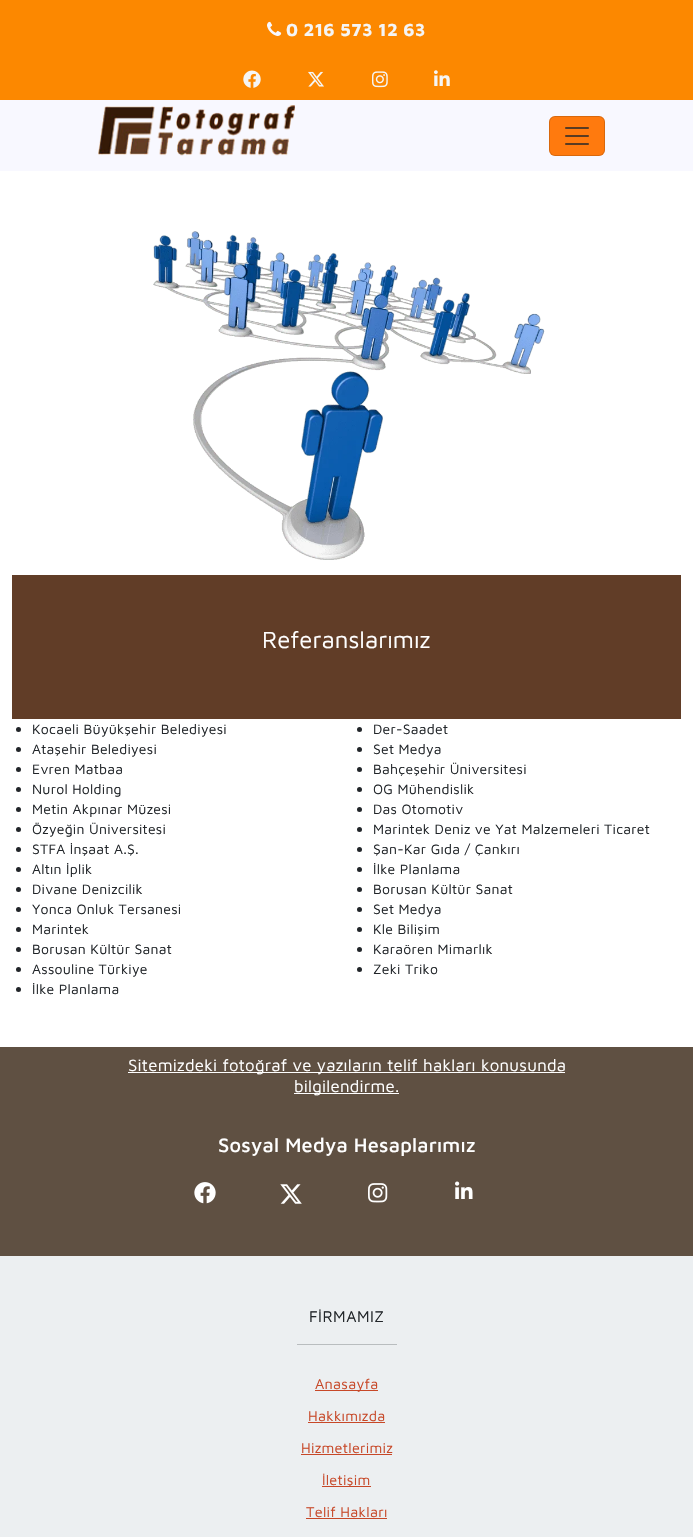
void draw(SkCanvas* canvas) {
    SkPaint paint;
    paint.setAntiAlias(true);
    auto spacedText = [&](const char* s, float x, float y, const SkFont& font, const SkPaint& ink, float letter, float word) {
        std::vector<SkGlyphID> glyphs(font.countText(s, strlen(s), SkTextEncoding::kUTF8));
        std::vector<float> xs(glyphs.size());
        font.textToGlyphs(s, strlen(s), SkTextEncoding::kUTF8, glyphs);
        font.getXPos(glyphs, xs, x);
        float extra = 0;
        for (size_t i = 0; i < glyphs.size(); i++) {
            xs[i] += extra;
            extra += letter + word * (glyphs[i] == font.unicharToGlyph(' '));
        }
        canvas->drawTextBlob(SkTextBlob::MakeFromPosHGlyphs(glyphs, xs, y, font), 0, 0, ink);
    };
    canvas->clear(0xFFFFFFFF);
    paint.setColor(0xFFFC8800);
    canvas->drawRect(SkRect::MakeXYWH(0, 0, 693, 100), paint);
    canvas->drawImageRect(SkImages::DeferredFromEncodedData(SkData::MakeFromFileName("img1.png")), SkRect::MakeXYWH(267, 21, 15, 15), SkSamplingOptions());
    SkFont font1(fontMgr->matchFamilyStyle("Maven Pro", SkFontStyle::Bold()), 18);
    font1.setSubpixel(true);
    paint.setColor(0xFFF5F5F5);
    spacedText("0 216 573 12 63", 286, 36, font1, paint, 0.25f, 0);
    canvas->drawImageRect(SkImages::DeferredFromEncodedData(SkData::MakeFromFileName("img2.png")), SkRect::MakeXYWH(243, 70, 18, 18), SkSamplingOptions());
    canvas->drawImageRect(SkImages::DeferredFromEncodedData(SkData::MakeFromFileName("img3.png")), SkRect::MakeXYWH(308, 71, 16, 16), SkSamplingOptions());
    canvas->drawImageRect(SkImages::DeferredFromEncodedData(SkData::MakeFromFileName("img4.png")), SkRect::MakeXYWH(372, 71, 16, 17), SkSamplingOptions());
    canvas->drawImageRect(SkImages::DeferredFromEncodedData(SkData::MakeFromFileName("img5.png")), SkRect::MakeXYWH(434, 70, 16, 16), SkSamplingOptions());
    paint.setColor(0xFFF8F8FF);
    canvas->drawRect(SkRect::MakeXYWH(0, 100, 693, 71), paint);
    canvas->drawImageRect(SkImages::DeferredFromEncodedData(SkData::MakeFromFileName("img6.png")), SkRect::MakeXYWH(98, 105, 197, 51), SkSamplingOptions());
    paint.setColor(0xFFFF7A0E);
    canvas->drawRoundRect(SkRect::MakeXYWH(549, 116, 56, 40), 6, 6, paint);
    paint.setStyle(SkPaint::kStroke_Style);
    paint.setStrokeWidth(1);
    paint.setColor(0x26000000);
    canvas->drawRoundRect(SkRect::MakeXYWH(549.5f, 116.5f, 55, 39), 5.5f, 5.5f, paint);
    canvas->drawImageRect(SkImages::DeferredFromEncodedData(SkData::MakeFromFileName("img7.png")), SkRect::MakeXYWH(565, 127, 24, 18), SkSamplingOptions());
    canvas->drawImageRect(SkImages::DeferredFromEncodedData(SkData::MakeFromFileName("img8.png")), SkRect::MakeXYWH(153, 231, 392, 329), SkSamplingOptions());
    paint.setStyle(SkPaint::kFill_Style);
    paint.setColor(0xFF613D27);
    canvas->drawRect(SkRect::MakeXYWH(12, 575, 669, 144), paint);
    SkFont font2(fontMgr->matchFamilyStyle("Maven Pro", SkFontStyle::Normal()), 24);
    font2.setSubpixel(true);
    paint.setColor(0xFFFFFFFF);
    canvas->drawString("Referanslarımız", 262, 648, font2, paint);
    paint.setColor(0xFF212529);
    canvas->drawCircle(18.5f, 729.5f, 2.5f, paint);
    SkFont font3(fontMgr->matchFamilyStyle("Maven Pro", SkFontStyle::Normal()), 14);
    font3.setSubpixel(true);
    spacedText("Kocaeli Büyükşehir Belediyesi", 32, 734, font3, paint, 0.25f, 0);
    canvas->drawCircle(359.5f, 729.5f, 2.5f, paint);
    spacedText("Der-Saadet", 373, 734, font3, paint, 0.25f, 0);
    canvas->drawCircle(18.5f, 749.5f, 2.5f, paint);
    spacedText("Ataşehir Belediyesi", 32, 754, font3, paint, 0.25f, 0);
    canvas->drawCircle(359.5f, 749.5f, 2.5f, paint);
    spacedText("Set Medya", 373, 754, font3, paint, 0.25f, 0);
    canvas->drawCircle(18.5f, 769.5f, 2.5f, paint);
    spacedText("Evren Matbaa", 32, 774, font3, paint, 0.25f, 0);
    canvas->drawCircle(359.5f, 769.5f, 2.5f, paint);
    spacedText("Bahçeşehir Üniversitesi", 373, 774, font3, paint, 0.25f, 0);
    canvas->drawCircle(18.5f, 789.5f, 2.5f, paint);
    spacedText("Nurol Holding", 32, 794, font3, paint, 0.25f, 0);
    canvas->drawCircle(359.5f, 789.5f, 2.5f, paint);
    spacedText("OG Mühendislik", 373, 794, font3, paint, 0.25f, 0);
    canvas->drawCircle(18.5f, 809.5f, 2.5f, paint);
    spacedText("Metin Akpınar Müzesi", 32, 814, font3, paint, 0.25f, 0);
    canvas->drawCircle(359.5f, 809.5f, 2.5f, paint);
    spacedText("Das Otomotiv", 373, 814, font3, paint, 0.25f, 0);
    canvas->drawCircle(18.5f, 829.5f, 2.5f, paint);
    spacedText("Özyeğin Üniversitesi", 32, 834, font3, paint, 0.25f, 0);
    canvas->drawCircle(359.5f, 829.5f, 2.5f, paint);
    spacedText("Marintek Deniz ve Yat Malzemeleri Ticaret", 373, 834, font3, paint, 0.25f, 0);
    canvas->drawCircle(18.5f, 849.5f, 2.5f, paint);
    spacedText("STFA İnşaat A.Ş.", 32, 854, font3, paint, 0.25f, 0);
    canvas->drawCircle(359.5f, 849.5f, 2.5f, paint);
    spacedText("Şan-Kar Gıda / Çankırı", 373, 854, font3, paint, 0.25f, 0);
    canvas->drawCircle(18.5f, 869.5f, 2.5f, paint);
    spacedText("Altın İplik", 32, 874, font3, paint, 0.25f, 0);
    canvas->drawCircle(359.5f, 869.5f, 2.5f, paint);
    spacedText("İlke Planlama", 373, 874, font3, paint, 0.25f, 0);
    canvas->drawCircle(18.5f, 889.5f, 2.5f, paint);
    spacedText("Divane Denizcilik", 32, 894, font3, paint, 0.25f, 0);
    canvas->drawCircle(359.5f, 889.5f, 2.5f, paint);
    spacedText("Borusan Kültür Sanat", 373, 894, font3, paint, 0.25f, 0);
    canvas->drawCircle(18.5f, 909.5f, 2.5f, paint);
    spacedText("Yonca Onluk Tersanesi", 32, 914, font3, paint, 0.25f, 0);
    canvas->drawCircle(359.5f, 909.5f, 2.5f, paint);
    spacedText("Set Medya", 373, 914, font3, paint, 0.25f, 0);
    canvas->drawCircle(18.5f, 929.5f, 2.5f, paint);
    spacedText("Marintek", 32, 934, font3, paint, 0.25f, 0);
    canvas->drawCircle(359.5f, 929.5f, 2.5f, paint);
    spacedText("Kle Bilişim", 373, 934, font3, paint, 0.25f, 0);
    canvas->drawCircle(18.5f, 949.5f, 2.5f, paint);
    spacedText("Borusan Kültür Sanat", 32, 954, font3, paint, 0.25f, 0);
    canvas->drawCircle(359.5f, 949.5f, 2.5f, paint);
    spacedText("Karaören Mimarlık", 373, 954, font3, paint, 0.25f, 0);
    canvas->drawCircle(18.5f, 969.5f, 2.5f, paint);
    spacedText("Assouline Türkiye", 32, 974, font3, paint, 0.25f, 0);
    canvas->drawCircle(359.5f, 969.5f, 2.5f, paint);
    spacedText("Zeki Triko", 373, 974, font3, paint, 0.25f, 0);
    canvas->drawCircle(18.5f, 989.5f, 2.5f, paint);
    spacedText("İlke Planlama", 32, 994, font3, paint, 0.25f, 0);
    paint.setColor(0xFF5F5042);
    canvas->drawRect(SkRect::MakeXYWH(0, 1047, 693, 209), paint);
    paint.setColor(0xFFFFFFFF);
    canvas->drawRect(SkRect::MakeXYWH(128, 1072, 437, 1), paint);
    SkFont font4(fontMgr->matchFamilyStyle("Maven Pro", SkFontStyle::Normal()), 16.8f);
    font4.setSubpixel(true);
    spacedText("Sitemizdeki fotoğraf ve yazıların telif hakları konusunda", 128, 1071, font4, paint, 0.25f, 0);
    canvas->drawRect(SkRect::MakeXYWH(294, 1093, 105, 1), paint);
    spacedText("bilgilendirme.", 294, 1092, font4, paint, 0.25f, 0);
    SkFont font5(fontMgr->matchFamilyStyle("Maven Pro", SkFontStyle(500, SkFontStyle::kNormal_Width, SkFontStyle::kUpright_Slant)), 20);
    font5.setSubpixel(true);
    spacedText("Sosyal Medya Hesaplarımız", 218, 1152, font5, paint, 0.25f, 0);
    canvas->drawImageRect(SkImages::DeferredFromEncodedData(SkData::MakeFromFileName("img9.png")), SkRect::MakeXYWH(194, 1182, 22, 22), SkSamplingOptions());
    canvas->drawImageRect(SkImages::DeferredFromEncodedData(SkData::MakeFromFileName("img10.png")), SkRect::MakeXYWH(280, 1184, 22, 20), SkSamplingOptions());
    canvas->drawImageRect(SkImages::DeferredFromEncodedData(SkData::MakeFromFileName("img11.png")), SkRect::MakeXYWH(368, 1183, 20, 20), SkSamplingOptions());
    canvas->drawImageRect(SkImages::DeferredFromEncodedData(SkData::MakeFromFileName("img12.png")), SkRect::MakeXYWH(455, 1181, 18, 18), SkSamplingOptions());
    paint.setColor(0xFFECEFF1);
    canvas->drawRect(SkRect::MakeXYWH(0, 1256, 693, 281), paint);
    SkFont font6(fontMgr->matchFamilyStyle("Maven Pro", SkFontStyle::Normal()), 16);
    font6.setSubpixel(true);
    paint.setColor(0xFF212529);
    spacedText("FİRMAMIZ", 309, 1322, font6, paint, 0.5f, 0);
    paint.setColor(0xFFB9BDBF);
    canvas->drawRect(SkRect::MakeXYWH(297, 1344, 100, 1), paint);
    paint.setColor(0xFFC74828);
    canvas->drawRect(SkRect::MakeXYWH(315, 1390, 63, 1), paint);
    SkFont font7(fontMgr->matchFamilyStyle("Maven Pro", SkFontStyle::Normal()), 14.5f);
    font7.setSubpixel(true);
    spacedText("Anasayfa", 315, 1389, font7, paint, 0.25f, 0);
    spacedText("Hakkımızda", 308, 1421, font7, paint, 0.25f, 0);
    canvas->drawRect(SkRect::MakeXYWH(308, 1422, 77, 1), paint);
    spacedText("Hizmetlerimiz", 301, 1453, font7, paint, 0.25f, 0);
    canvas->drawRect(SkRect::MakeXYWH(301, 1454, 91, 1), paint);
    canvas->drawRect(SkRect::MakeXYWH(322, 1486, 49, 1), paint);
    spacedText("İletişim", 322, 1485, font7, paint, 0.25f, 0);
    spacedText("Telif Hakları", 306, 1517, font7, paint, 0.25f, 0);
    canvas->drawRect(SkRect::MakeXYWH(306, 1518, 81, 1), paint);
}
